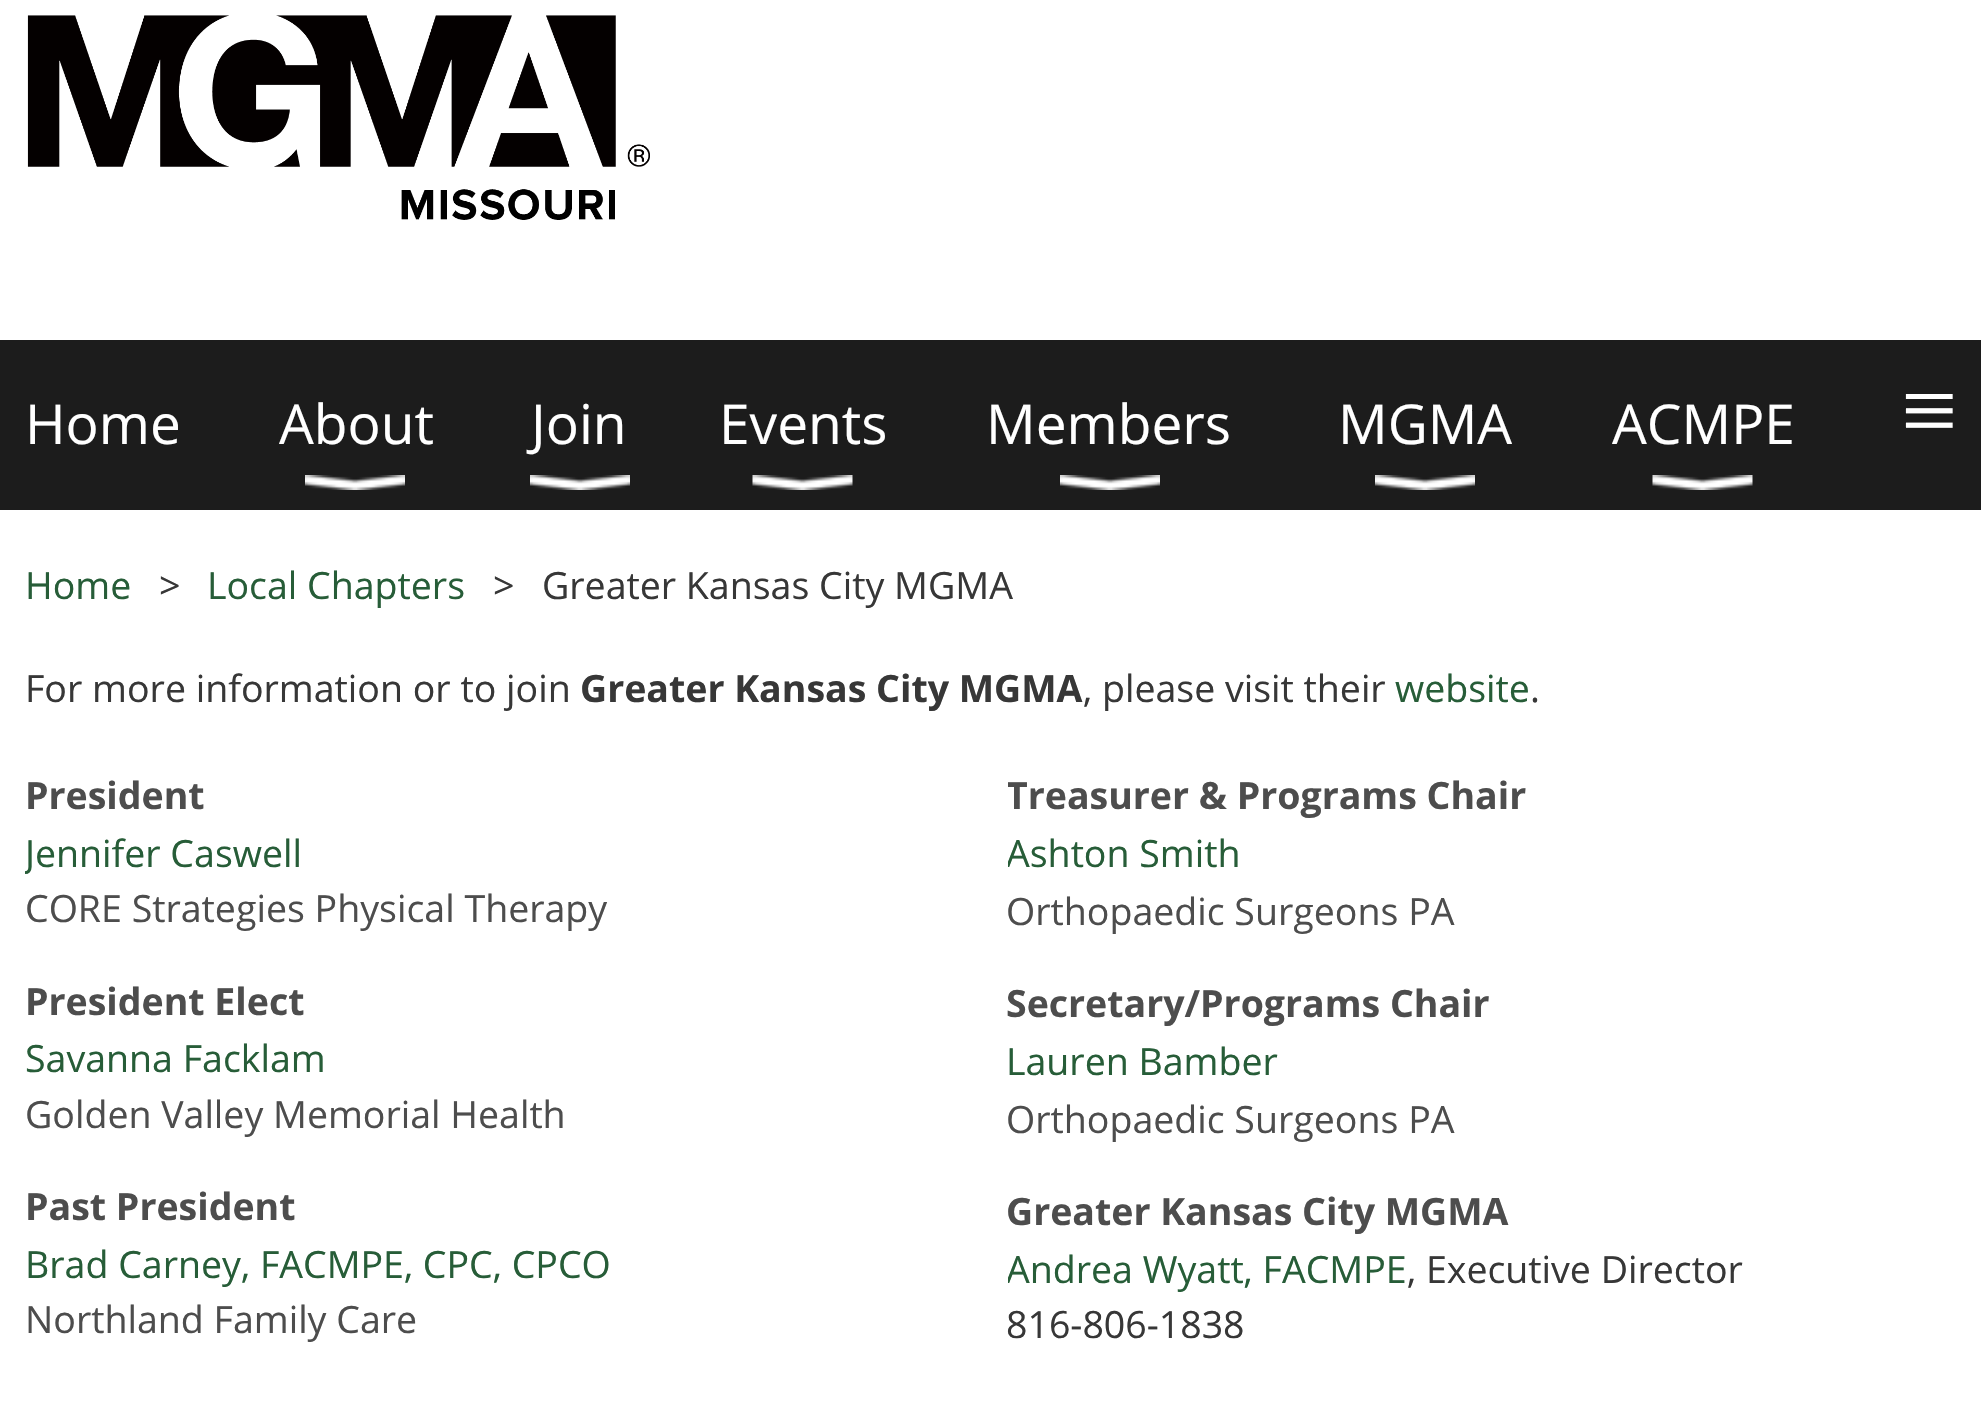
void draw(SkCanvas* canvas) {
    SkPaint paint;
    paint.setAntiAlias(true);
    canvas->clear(0xFFFFFFFF);
    canvas->drawImageRect(SkImages::DeferredFromEncodedData(SkData::MakeFromFileName("img1.png")), SkRect::MakeXYWH(27, 15, 623, 205), SkSamplingOptions());
    paint.setColor(0xFF1C1C1C);
    canvas->drawRect(SkRect::MakeXYWH(0, 340, 1981, 170), paint);
    SkFont font1(fontMgr->matchFamilyStyle("Open Sans", SkFontStyle::Normal()), 55);
    font1.setSubpixel(true);
    paint.setColor(0xFFFFFFFF);
    canvas->drawString("Home", 25, 444, font1, paint);
    canvas->drawString("About", 279, 444, font1, paint);
    canvas->drawImageRect(SkImages::DeferredFromEncodedData(SkData::MakeFromFileName("img2.png")), SkRect::MakeXYWH(305, 475, 100, 15), SkSamplingOptions());
    canvas->drawString("Join", 531, 444, font1, paint);
    canvas->drawImageRect(SkImages::DeferredFromEncodedData(SkData::MakeFromFileName("img3.png")), SkRect::MakeXYWH(530, 475, 100, 15), SkSamplingOptions());
    canvas->drawString("Events", 719, 444, font1, paint);
    canvas->drawImageRect(SkImages::DeferredFromEncodedData(SkData::MakeFromFileName("img4.png")), SkRect::MakeXYWH(752, 475, 101, 15), SkSamplingOptions());
    canvas->drawString("Members", 986, 444, font1, paint);
    canvas->drawImageRect(SkImages::DeferredFromEncodedData(SkData::MakeFromFileName("img2.png")), SkRect::MakeXYWH(1060, 475, 100, 15), SkSamplingOptions());
    canvas->drawString("MGMA", 1338, 444, font1, paint);
    canvas->drawImageRect(SkImages::DeferredFromEncodedData(SkData::MakeFromFileName("img2.png")), SkRect::MakeXYWH(1375, 475, 100, 15), SkSamplingOptions());
    canvas->drawString("ACMPE", 1612, 444, font1, paint);
    canvas->drawImageRect(SkImages::DeferredFromEncodedData(SkData::MakeFromFileName("img5.png")), SkRect::MakeXYWH(1652, 475, 101, 15), SkSamplingOptions());
    SkFont font2(fontMgr->matchFamilyStyle("Liberation Serif", SkFontStyle::Normal()), 100);
    font2.setSubpixel(true);
    canvas->drawString("≡", 1901, 444, font2, paint);
    SkFont font3(fontMgr->matchFamilyStyle("Open Sans", SkFontStyle::Normal()), 37.5f);
    font3.setSubpixel(true);
    paint.setColor(0xFF275D38);
    canvas->drawString("Home", 25, 599, font3, paint);
    paint.setColor(0xFF373737);
    canvas->drawString(">", 159, 599, font3, paint);
    paint.setColor(0xFF275D38);
    canvas->drawString("Local Chapters", 207, 599, font3, paint);
    paint.setColor(0xFF373737);
    canvas->drawString(">", 493, 599, font3, paint);
    canvas->drawString("Greater Kansas City MGMA", 542, 599, font3, paint);
    canvas->drawString("For more information or to join", 25, 702, font3, paint);
    SkFont font4(fontMgr->matchFamilyStyle("Open Sans", SkFontStyle::Bold()), 37.5f);
    font4.setSubpixel(true);
    canvas->drawString("Greater Kansas City MGMA", 580, 702, font4, paint);
    canvas->drawString(", please visit their", 1083, 702, font3, paint);
    paint.setColor(0xFF275D38);
    canvas->drawString("website", 1395, 702, font3, paint);
    paint.setColor(0xFF373737);
    canvas->drawString(".", 1530, 702, font3, paint);
    paint.setColor(0xFF4D4D4D);
    canvas->drawString("President", 25, 809, font4, paint);
    canvas->save();
    canvas->clipRect(SkRect::MakeXYWH(25, 768, 953, 577));
    paint.setColor(0xFF275D38);
    canvas->drawString("Jennifer Caswell", 25, 867, font3, paint);
    canvas->restore();
    paint.setColor(0xFF4D4D4D);
    canvas->drawString("CORE Strategies Physical Therapy", 25, 922, font3, paint);
    canvas->drawString("President Elect", 25, 1015, font4, paint);
    paint.setColor(0xFF275D38);
    canvas->drawString("Savanna Facklam", 25, 1072, font3, paint);
    paint.setColor(0xFF4D4D4D);
    canvas->drawString("Golden Valley Memorial Health", 25, 1128, font3, paint);
    canvas->drawString("Past President", 25, 1220, font4, paint);
    paint.setColor(0xFF275D38);
    canvas->drawString("Brad Carney, FACMPE, CPC, CPCO", 25, 1278, font3, paint);
    paint.setColor(0xFF4D4D4D);
    canvas->drawString("Northland Family Care", 25, 1333, font3, paint);
    canvas->save();
    canvas->clipRect(SkRect::MakeXYWH(1008, 768, 950, 582));
    canvas->drawString("Treasurer & Programs Chair", 1006, 809, font4, paint);
    paint.setColor(0xFF275D38);
    canvas->drawString("Ashton Smith", 1006, 867, font3, paint);
    canvas->restore();
    paint.setColor(0xFF4D4D4D);
    canvas->drawString("Orthopaedic Surgeons PA", 1006, 925, font3, paint);
    canvas->drawString("Secretary/Programs Chair", 1006, 1017, font4, paint);
    paint.setColor(0xFF275D38);
    canvas->drawString("Lauren Bamber", 1006, 1075, font3, paint);
    paint.setColor(0xFF4D4D4D);
    canvas->drawString("Orthopaedic Surgeons PA", 1006, 1133, font3, paint);
    canvas->drawString("Greater Kansas City MGMA", 1006, 1225, font4, paint);
    canvas->save();
    canvas->clipRect(SkRect::MakeXYWH(1008, 768, 950, 582));
    paint.setColor(0xFF275D38);
    canvas->drawString("Andrea Wyatt, FACMPE", 1006, 1283, font3, paint);
    canvas->restore();
    paint.setColor(0xFF373737);
    canvas->drawString(", Executive Director", 1407, 1283, font3, paint);
    canvas->drawString("816-806-1838", 1006, 1338, font3, paint);
}
